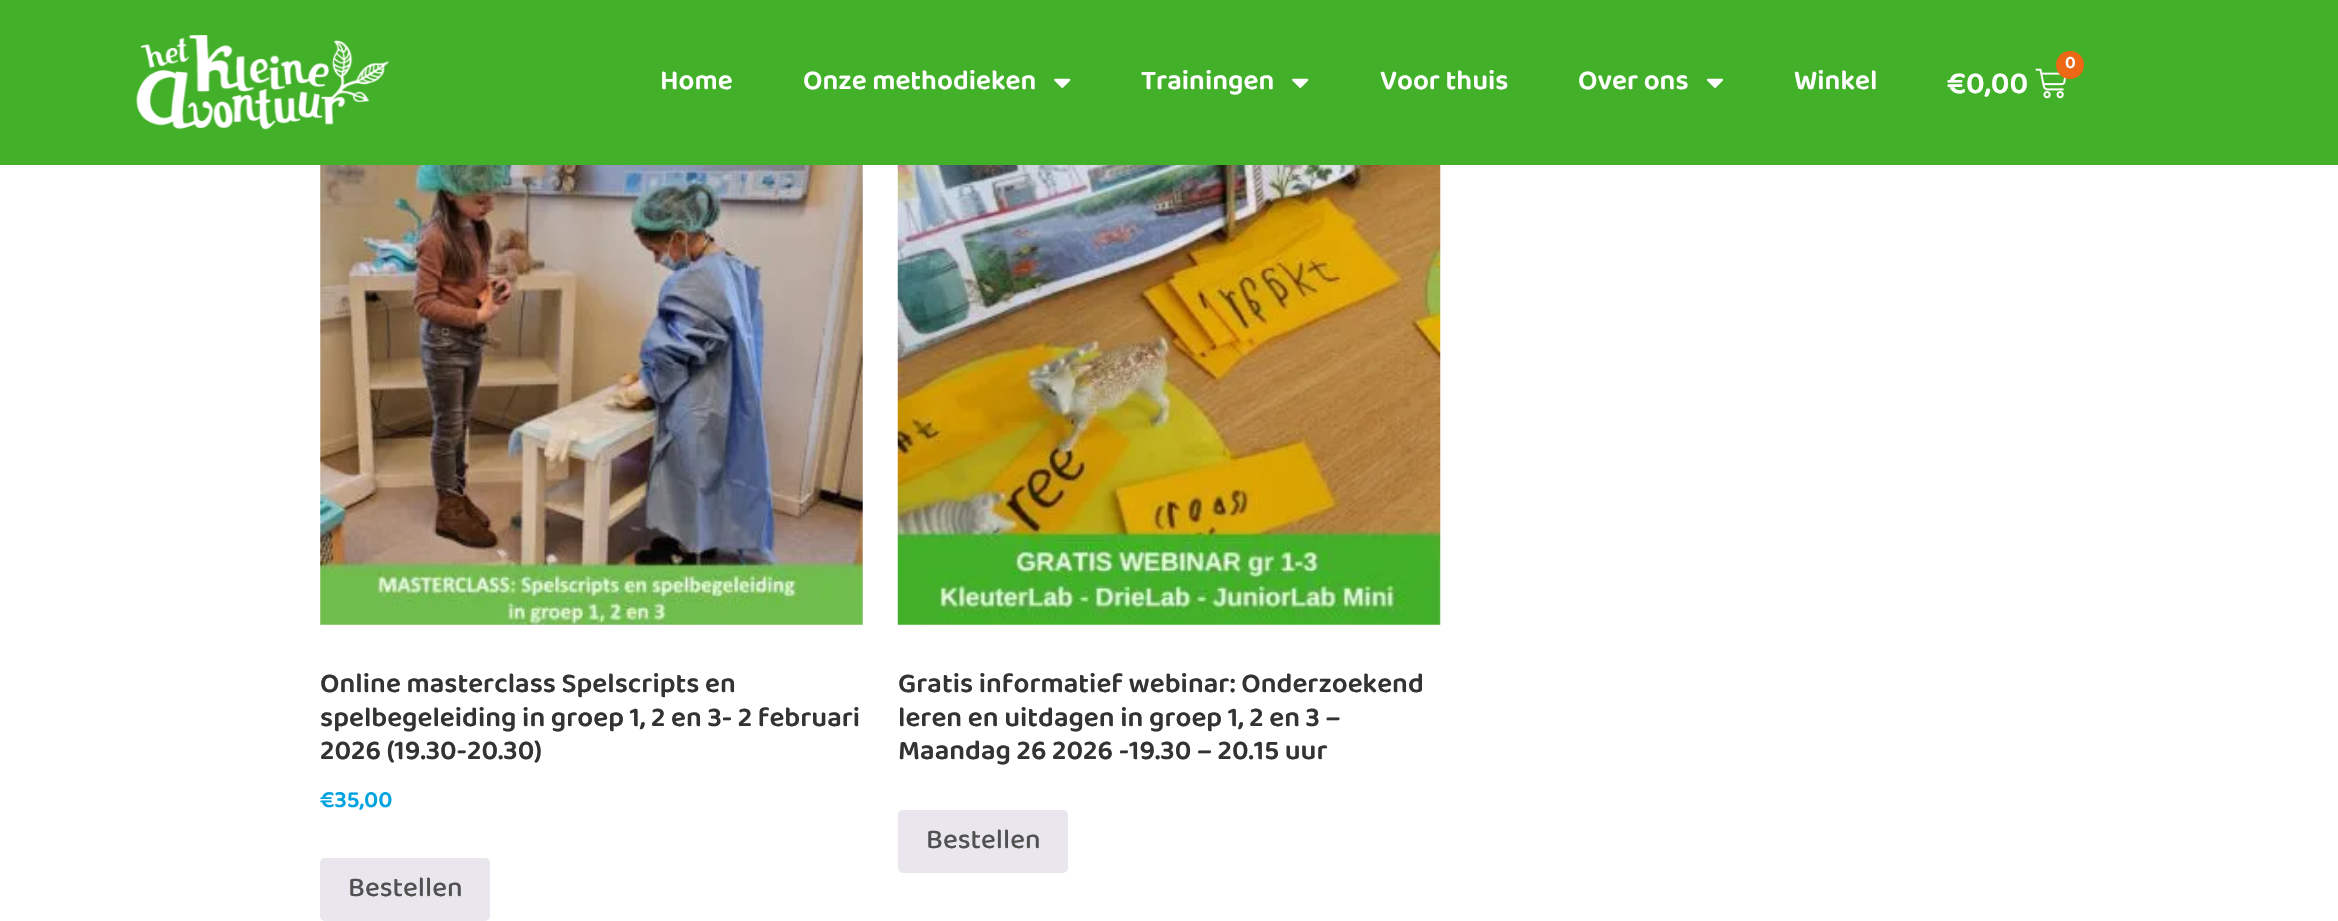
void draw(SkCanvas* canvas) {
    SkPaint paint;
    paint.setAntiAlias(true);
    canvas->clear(0xFFFFFFFF);
    paint.setColor(0xFF42B029);
    canvas->drawRect(SkRect::MakeXYWH(0, 0, 2338, 165), paint);
    canvas->drawImageRect(SkImages::DeferredFromEncodedData(SkData::MakeFromFileName("img1.png")), SkRect::MakeXYWH(136, 35, 253, 95), SkSamplingOptions());
    SkFont font1(fontMgr->matchFamilyStyle("Baloo 2", SkFontStyle(600, SkFontStyle::kNormal_Width, SkFontStyle::kUpright_Slant)), 28);
    font1.setSubpixel(true);
    paint.setColor(0xFFFFFFFF);
    canvas->drawString("Home", 660, 89, font1, paint);
    canvas->drawString("Onze methodieken", 803, 89, font1, paint);
    canvas->drawImageRect(SkImages::DeferredFromEncodedData(SkData::MakeFromFileName("img2.png")), SkRect::MakeXYWH(1054, 78, 17, 10), SkSamplingOptions());
    canvas->drawString("Trainingen", 1141, 89, font1, paint);
    canvas->drawImageRect(SkImages::DeferredFromEncodedData(SkData::MakeFromFileName("img2.png")), SkRect::MakeXYWH(1292, 78, 17, 10), SkSamplingOptions());
    canvas->drawString("Voor thuis", 1380, 89, font1, paint);
    canvas->drawString("Over ons", 1578, 89, font1, paint);
    canvas->drawImageRect(SkImages::DeferredFromEncodedData(SkData::MakeFromFileName("img3.png")), SkRect::MakeXYWH(1706, 78, 18, 10), SkSamplingOptions());
    canvas->drawString("Winkel", 1794, 89, font1, paint);
    canvas->drawImageRect(SkImages::DeferredFromEncodedData(SkData::MakeFromFileName("img4.png")), SkRect::MakeXYWH(2035, 68, 31, 31), SkSamplingOptions());
    paint.setColor(0xFFEC6815);
    canvas->drawCircle(2070, 65, 14, paint);
    SkFont font2(fontMgr->matchFamilyStyle("Baloo 2", SkFontStyle(600, SkFontStyle::kNormal_Width, SkFontStyle::kUpright_Slant)), 18);
    font2.setSubpixel(true);
    paint.setColor(0xFFFFFFFF);
    canvas->drawString("0", 2065, 68, font2, paint);
    SkFont font3(fontMgr->matchFamilyStyle("Baloo 2", SkFontStyle(600, SkFontStyle::kNormal_Width, SkFontStyle::kUpright_Slant)), 31.5f);
    font3.setSubpixel(true);
    canvas->drawString("€0,00", 1947, 93, font3, paint);
    canvas->drawImageRect(SkImages::DeferredFromEncodedData(SkData::MakeFromFileName("img5.png")), SkRect::MakeXYWH(320, 165, 543, 460), SkSamplingOptions());
    paint.setColor(0xFF333333);
    canvas->drawString("Online masterclass Spelscripts en", 320, 692, font1, paint);
    canvas->drawString("spelbegeleiding in groep 1, 2 en 3- 2 februari", 320, 726, font1, paint);
    canvas->drawString("2026 (19.30-20.30)", 320, 759, font1, paint);
    SkFont font4(fontMgr->matchFamilyStyle("Baloo 2", SkFontStyle(600, SkFontStyle::kNormal_Width, SkFontStyle::kUpright_Slant)), 24);
    font4.setSubpixel(true);
    paint.setColor(0xFF00A3E0);
    canvas->drawString("€35,00", 320, 807, font4, paint);
    paint.setColor(0xFFE9E6ED);
    canvas->drawRoundRect(SkRect::MakeXYWH(320, 858, 170, 63), 5, 5, paint);
    SkFont font5(fontMgr->matchFamilyStyle("Baloo 2", SkFontStyle(500, SkFontStyle::kNormal_Width, SkFontStyle::kUpright_Slant)), 28);
    font5.setSubpixel(true);
    paint.setColor(0xFF515151);
    canvas->drawString("Bestellen", 348, 896, font5, paint);
    canvas->drawImageRect(SkImages::DeferredFromEncodedData(SkData::MakeFromFileName("img6.png")), SkRect::MakeXYWH(897, 165, 544, 460), SkSamplingOptions());
    paint.setColor(0xFF333333);
    canvas->drawString("Gratis informatief webinar: Onderzoekend", 898, 692, font1, paint);
    canvas->drawString("leren en uitdagen in groep 1, 2 en 3 –", 898, 726, font1, paint);
    canvas->drawString("Maandag 26 2026 -19.30 – 20.15 uur", 898, 759, font1, paint);
    paint.setColor(0xFFE9E6ED);
    canvas->drawRoundRect(SkRect::MakeXYWH(898, 810, 170, 63), 5, 5, paint);
    paint.setColor(0xFF515151);
    canvas->drawString("Bestellen", 926, 848, font5, paint);
}
